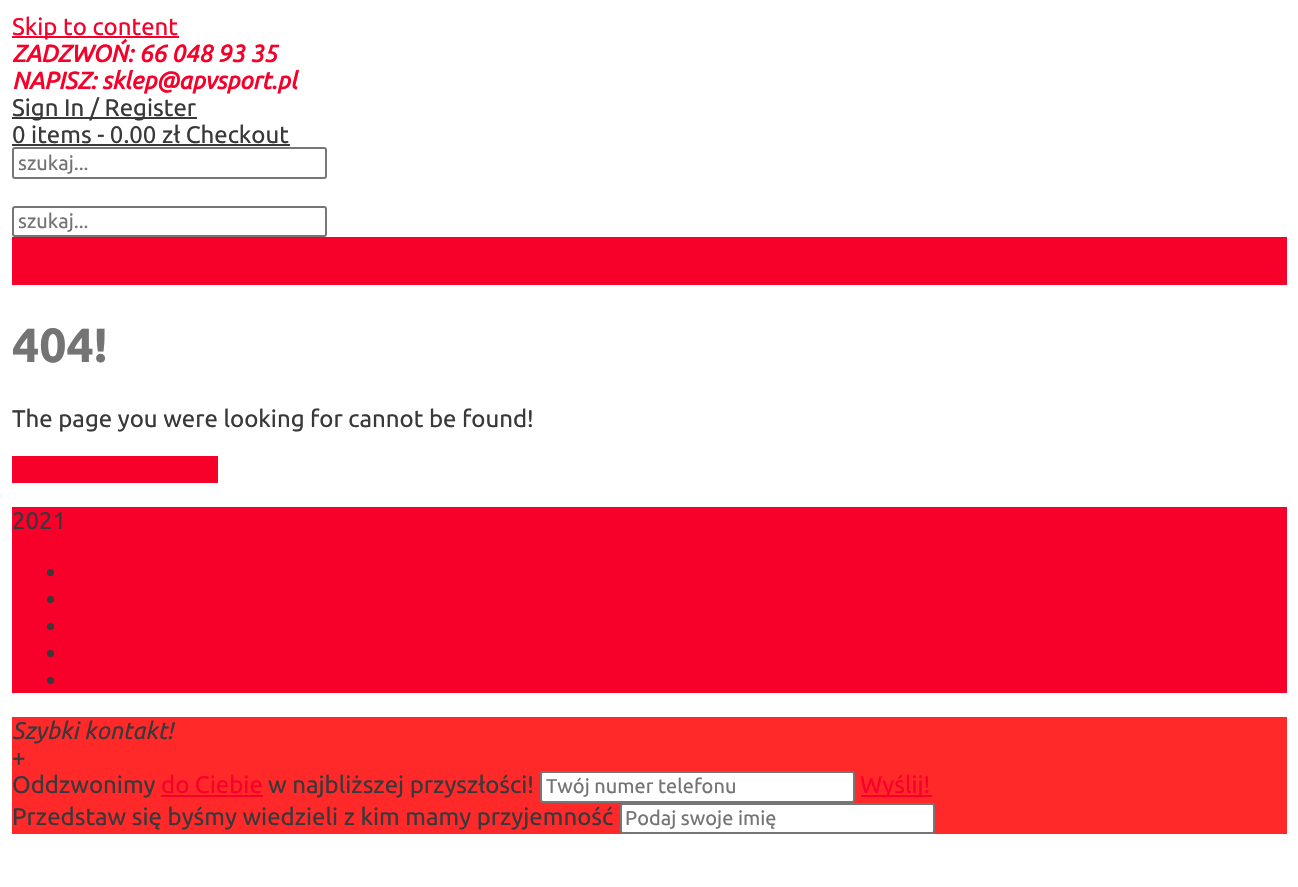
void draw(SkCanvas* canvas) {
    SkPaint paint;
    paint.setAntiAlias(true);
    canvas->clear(0xFFFFFFFF);
    paint.setColor(0xFFF70029);
    canvas->drawRect(SkRect::MakeXYWH(12, 36, 167, 2), paint);
    SkFont font1(fontMgr->matchFamilyStyle("Ubuntu", SkFontStyle::Normal()), 24);
    font1.setSubpixel(true);
    canvas->drawString("Skip to content", 12, 35, font1, paint);
    SkFont font2(fontMgr->matchFamilyStyle("Ubuntu", SkFontStyle::BoldItalic()), 24);
    font2.setSubpixel(true);
    canvas->drawString("ZADZWOŃ: 66 048 93 35", 12, 62, font2, paint);
    canvas->drawString("NAPISZ: sklep@apvsport.pl", 12, 89, font2, paint);
    paint.setColor(0xFF39383A);
    canvas->drawRect(SkRect::MakeXYWH(12, 117, 185, 2), paint);
    canvas->drawString("Sign In / Register", 12, 116, font1, paint);
    canvas->drawString("0 items - 0.00 zł Checkout", 12, 143, font1, paint);
    canvas->drawRect(SkRect::MakeXYWH(12, 144, 278, 2), paint);
    paint.setStyle(SkPaint::kStroke_Style);
    paint.setStrokeWidth(2);
    paint.setColor(0xFF767676);
    canvas->drawRoundRect(SkRect::MakeXYWH(13, 148, 313, 30), 2, 2, paint);
    SkFont font3(fontMgr->matchFamilyStyle("Ubuntu", SkFontStyle::Normal()), 20);
    font3.setSubpixel(true);
    paint.setStyle(SkPaint::kFill_Style);
    paint.setColor(0xFF747475);
    canvas->drawString("szukaj...", 18, 170, font3, paint);
    paint.setStyle(SkPaint::kStroke_Style);
    paint.setColor(0xFF767676);
    canvas->drawRoundRect(SkRect::MakeXYWH(13, 207, 313, 29), 2, 2, paint);
    paint.setStyle(SkPaint::kFill_Style);
    paint.setColor(0xFF747475);
    canvas->drawString("szukaj...", 18, 228, font3, paint);
    paint.setColor(0xFFF70029);
    canvas->drawRect(SkRect::MakeXYWH(12, 237, 1275, 48), paint);
    SkFont font4(fontMgr->matchFamilyStyle("Ubuntu", SkFontStyle::Bold()), 48);
    font4.setSubpixel(true);
    paint.setColor(0xFF747475);
    canvas->drawString("404!", 12, 362, font4, paint);
    paint.setColor(0xFF39383A);
    canvas->drawString("The page you were looking for cannot be found!", 12, 427, font1, paint);
    paint.setColor(0xFFF70029);
    canvas->drawRect(SkRect::MakeXYWH(12, 456, 206, 27), paint);
    canvas->drawRect(SkRect::MakeXYWH(12, 507, 1275, 186), paint);
    paint.setColor(0xFF39383A);
    canvas->drawString("2021", 12, 529, font1, paint);
    canvas->drawCircle(50.5f, 572.5f, 3.5f, paint);
    canvas->drawCircle(50.5f, 599.5f, 3.5f, paint);
    canvas->drawCircle(50.5f, 626.5f, 3.5f, paint);
    canvas->drawCircle(50.5f, 653.5f, 3.5f, paint);
    canvas->drawCircle(50.5f, 680.5f, 3.5f, paint);
    paint.setColor(0xFFFF2929);
    canvas->drawRect(SkRect::MakeXYWH(12, 717, 1275, 117), paint);
    SkFont font5(fontMgr->matchFamilyStyle("Ubuntu", SkFontStyle::Italic()), 24);
    font5.setSubpixel(true);
    paint.setColor(0xFF39383A);
    canvas->drawString("Szybki kontakt!", 12, 739, font5, paint);
    canvas->drawString("+", 12, 766, font1, paint);
    canvas->drawString("Oddzwonimy", 12, 793, font1, paint);
    paint.setColor(0xFFF70029);
    canvas->drawString("do Ciebie", 161, 793, font1, paint);
    canvas->drawRect(SkRect::MakeXYWH(161, 795, 102, 2), paint);
    paint.setColor(0xFF39383A);
    canvas->drawString("w najbliższej przyszłości!", 268, 793, font1, paint);
    paint.setColor(0xFFFFFFFF);
    canvas->drawRoundRect(SkRect::MakeXYWH(541, 772, 313, 30), 2, 2, paint);
    paint.setStyle(SkPaint::kStroke_Style);
    paint.setColor(0xFF767676);
    canvas->drawRoundRect(SkRect::MakeXYWH(541, 772, 313, 30), 2, 2, paint);
    paint.setStyle(SkPaint::kFill_Style);
    paint.setColor(0xFF747475);
    canvas->drawString("Twój numer telefonu", 546, 793, font3, paint);
    paint.setColor(0xFFF70029);
    canvas->drawRect(SkRect::MakeXYWH(861, 795, 71, 2), paint);
    canvas->drawString("Wyślij!", 860, 793, font1, paint);
    paint.setColor(0xFF39383A);
    canvas->drawString("Przedstaw się byśmy wiedzieli z kim mamy przyjemność", 12, 825, font1, paint);
    paint.setColor(0xFFFFFFFF);
    canvas->drawRoundRect(SkRect::MakeXYWH(621, 804, 313, 29), 2, 2, paint);
    paint.setStyle(SkPaint::kStroke_Style);
    paint.setColor(0xFF767676);
    canvas->drawRoundRect(SkRect::MakeXYWH(621, 804, 313, 29), 2, 2, paint);
    paint.setStyle(SkPaint::kFill_Style);
    paint.setColor(0xFF747475);
    canvas->drawString("Podaj swoje imię", 625, 825, font3, paint);
}
